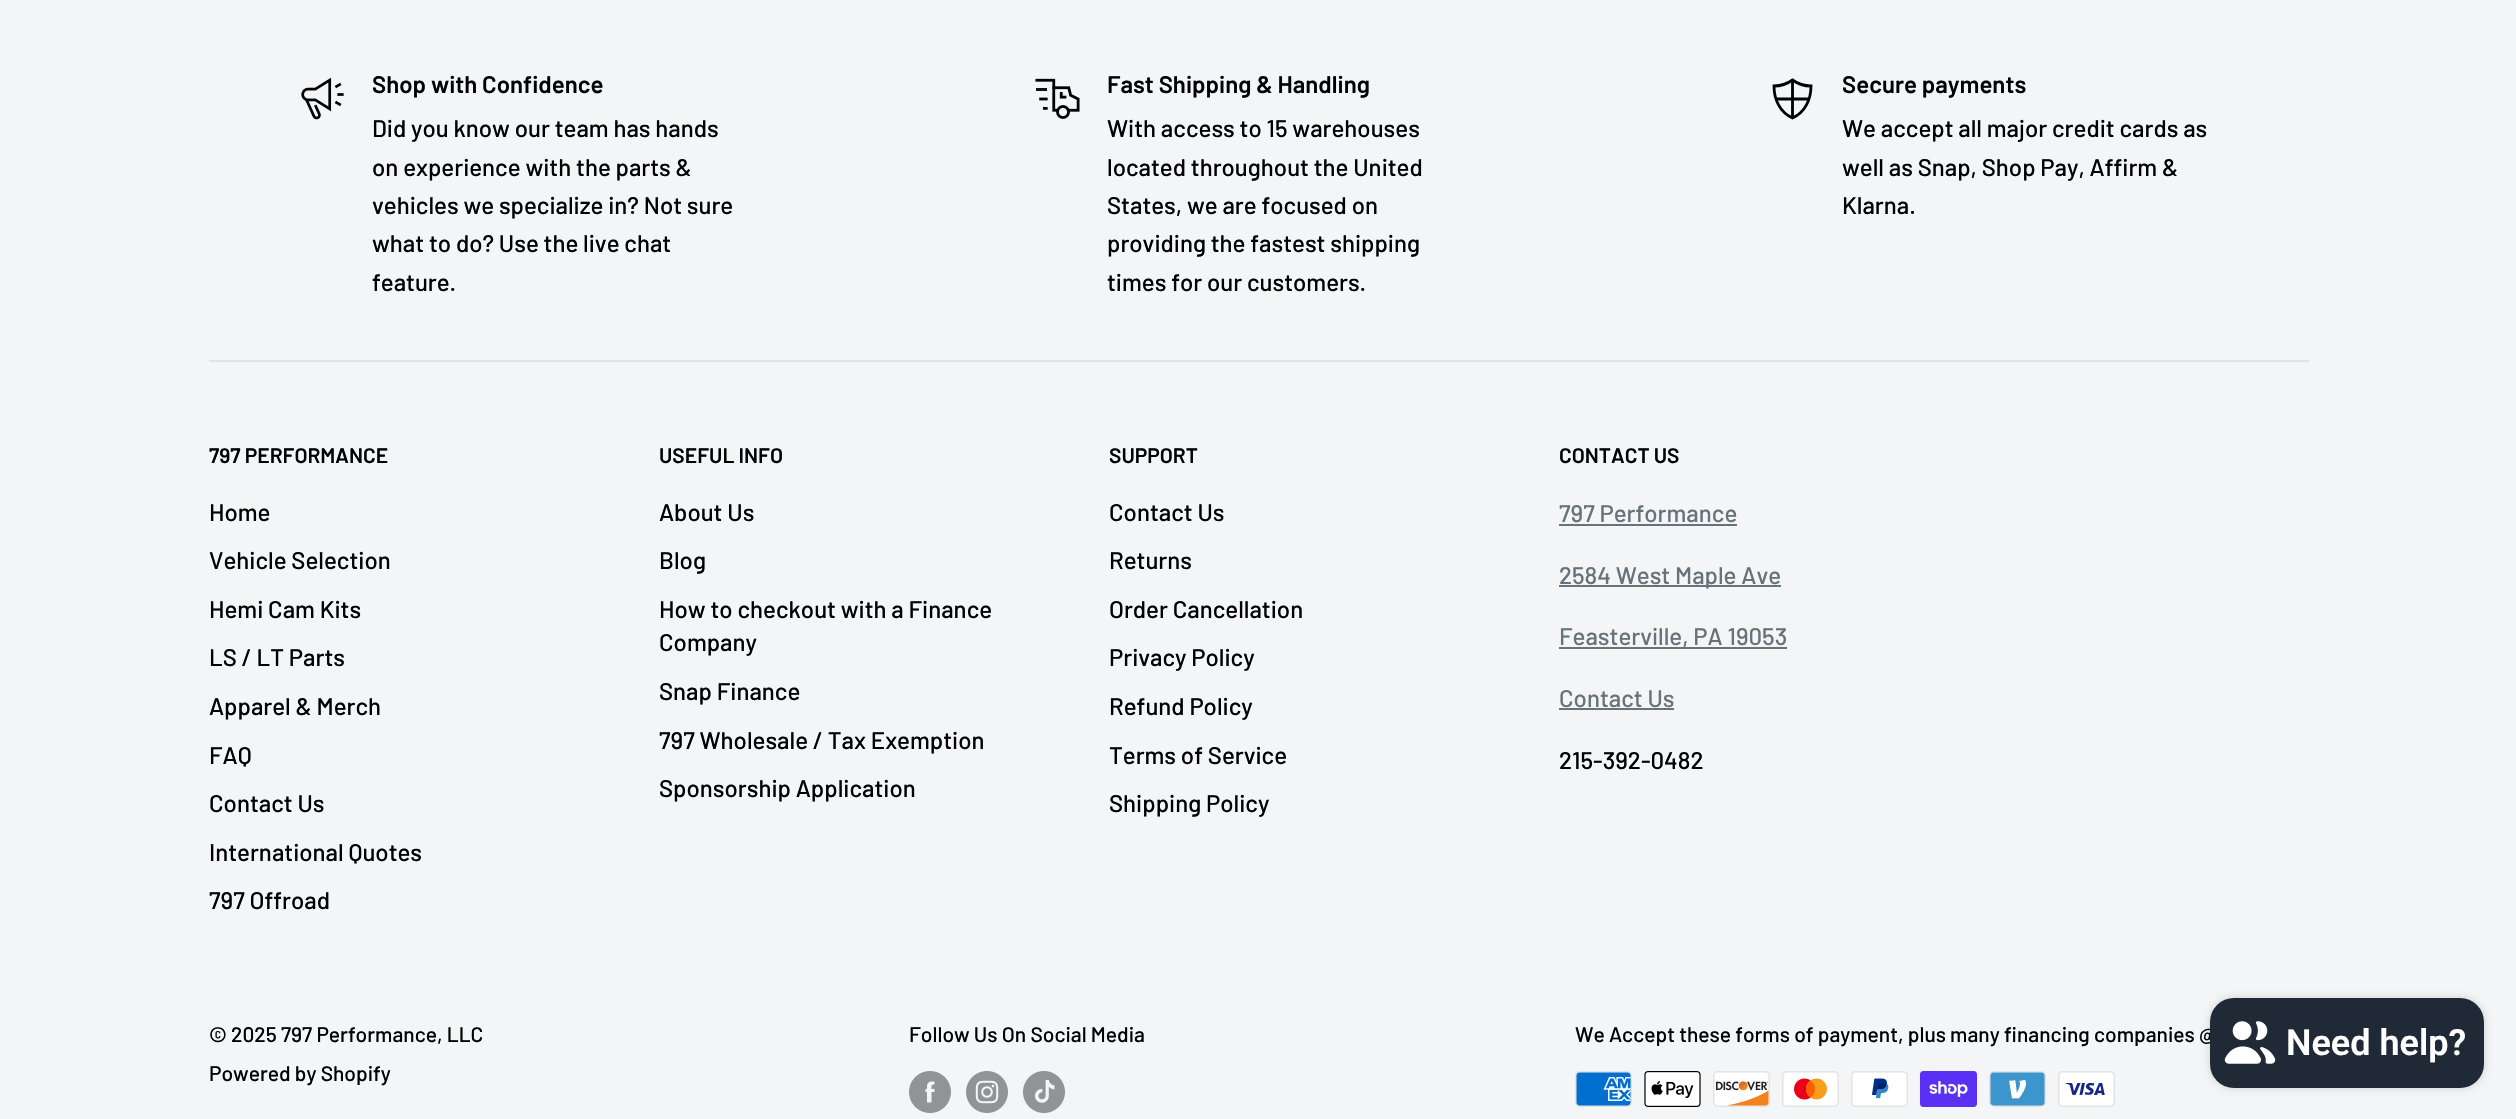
void draw(SkCanvas* canvas) {
    SkPaint paint;
    paint.setAntiAlias(true);
    canvas->clear(0xFFF3F5F6);
    canvas->drawImageRect(SkImages::DeferredFromEncodedData(SkData::MakeFromFileName("img1.png")), SkRect::MakeXYWH(301, 77, 43, 43), SkSamplingOptions());
    SkFont font1(fontMgr->matchFamilyStyle("Barlow", SkFontStyle(600, SkFontStyle::kNormal_Width, SkFontStyle::kUpright_Slant)), 24);
    font1.setSubpixel(true);
    paint.setColor(0xFF000000);
    canvas->drawString("Shop with Confidence", 372, 93, font1, paint);
    SkFont font2(fontMgr->matchFamilyStyle("Barlow", SkFontStyle(500, SkFontStyle::kNormal_Width, SkFontStyle::kUpright_Slant)), 24);
    font2.setSubpixel(true);
    canvas->drawString("Did you know our team has hands", 372, 137, font2, paint);
    canvas->drawString("on experience with the parts &", 372, 176, font2, paint);
    canvas->drawString("vehicles we specialize in? Not sure", 372, 214, font2, paint);
    canvas->drawString("what to do? Use the live chat", 372, 252, font2, paint);
    canvas->drawString("feature.", 372, 291, font2, paint);
    canvas->drawImageRect(SkImages::DeferredFromEncodedData(SkData::MakeFromFileName("img2.png")), SkRect::MakeXYWH(1035, 78, 45, 41), SkSamplingOptions());
    canvas->drawString("Fast Shipping & Handling", 1107, 93, font1, paint);
    canvas->drawString("With access to 15 warehouses", 1107, 137, font2, paint);
    canvas->drawString("located throughout the United", 1107, 176, font2, paint);
    canvas->drawString("States, we are focused on", 1107, 214, font2, paint);
    canvas->drawString("providing the fastest shipping", 1107, 252, font2, paint);
    canvas->drawString("times for our customers.", 1107, 291, font2, paint);
    paint.setStyle(SkPaint::kStroke_Style);
    paint.setStrokeWidth(2.8f);
    canvas->drawPath(SkPathBuilder().moveTo(1792.5f, 80).lineTo(1792.5f, 118).moveTo(1809, 99).lineTo(1776, 99).detach(), paint);
    paint.setStrokeCap(SkPaint::kSquare_Cap);
    canvas->drawPath(SkPathBuilder().moveTo(1792.5f, 80).cubicTo(1787, 84, 1779.5f, 86, 1774, 86).cubicTo(1774, 99, 1779.5f, 112, 1792.5f, 118).cubicTo(1805.5f, 112, 1811, 99, 1811, 86).cubicTo(1805.5f, 86, 1798, 84, 1792.5f, 80).close().detach(), paint);
    paint.setStyle(SkPaint::kFill_Style);
    canvas->drawString("Secure payments", 1842, 93, font1, paint);
    canvas->drawString("We accept all major credit cards as", 1842, 137, font2, paint);
    canvas->drawString("well as Snap, Shop Pay, Affirm &", 1842, 176, font2, paint);
    canvas->drawString("Klarna.", 1842, 214, font2, paint);
    paint.setColor(0xFFE1E3E4);
    canvas->drawRect(SkRect::MakeXYWH(209, 360, 2100, 2), paint);
    SkFont font3(fontMgr->matchFamilyStyle("Barlow", SkFontStyle(600, SkFontStyle::kNormal_Width, SkFontStyle::kUpright_Slant)), 21);
    font3.setSubpixel(true);
    paint.setColor(0xFF000000);
    canvas->drawString("797 PERFORMANCE", 209, 463, font3, paint);
    canvas->drawString("Home", 209, 521, font2, paint);
    canvas->drawString("Vehicle Selection", 209, 569, font2, paint);
    canvas->drawString("Hemi Cam Kits", 209, 618, font2, paint);
    canvas->drawString("LS / LT Parts", 209, 666, font2, paint);
    canvas->drawString("Apparel & Merch", 209, 715, font2, paint);
    canvas->drawString("FAQ", 209, 764, font2, paint);
    canvas->drawString("Contact Us", 209, 812, font2, paint);
    canvas->drawString("International Quotes", 209, 861, font2, paint);
    canvas->drawString("797 Offroad", 209, 909, font2, paint);
    canvas->drawString("USEFUL INFO", 659, 463, font3, paint);
    canvas->drawString("About Us", 659, 521, font2, paint);
    canvas->drawString("Blog", 659, 569, font2, paint);
    canvas->drawString("How to checkout with a Finance", 659, 618, font2, paint);
    canvas->drawString("Company", 659, 651, font2, paint);
    canvas->drawString("Snap Finance", 659, 700, font2, paint);
    canvas->drawString("797 Wholesale / Tax Exemption", 659, 749, font2, paint);
    canvas->drawString("Sponsorship Application", 659, 797, font2, paint);
    canvas->drawString("SUPPORT", 1109, 463, font3, paint);
    canvas->drawString("Contact Us", 1109, 521, font2, paint);
    canvas->drawString("Returns", 1109, 569, font2, paint);
    canvas->drawString("Order Cancellation", 1109, 618, font2, paint);
    canvas->drawString("Privacy Policy", 1109, 666, font2, paint);
    canvas->drawString("Refund Policy", 1109, 715, font2, paint);
    canvas->drawString("Terms of Service", 1109, 764, font2, paint);
    canvas->drawString("Shipping Policy", 1109, 812, font2, paint);
    canvas->drawString("CONTACT US", 1559, 463, font3, paint);
    paint.setColor(0xFF677279);
    canvas->drawString("797 Performance", 1559, 522, font2, paint);
    canvas->drawRect(SkRect::MakeXYWH(1559, 524, 178, 2), paint);
    canvas->drawRect(SkRect::MakeXYWH(1559, 585, 222, 2), paint);
    canvas->drawString("2584 West Maple Ave", 1559, 584, font2, paint);
    canvas->drawRect(SkRect::MakeXYWH(1559, 647, 228, 2), paint);
    canvas->drawString("Feasterville, PA 19053", 1559, 645, font2, paint);
    canvas->drawString("Contact Us", 1559, 707, font2, paint);
    canvas->drawRect(SkRect::MakeXYWH(1559, 708, 115, 2), paint);
    paint.setColor(0xFF000000);
    canvas->drawString("215-392-0482", 1559, 769, font2, paint);
    SkFont font4(fontMgr->matchFamilyStyle("Barlow", SkFontStyle(500, SkFontStyle::kNormal_Width, SkFontStyle::kUpright_Slant)), 21);
    font4.setSubpixel(true);
    canvas->drawString("© 2025 797 Performance, LLC", 209, 1042, font4, paint);
    canvas->drawString("Powered by Shopify", 209, 1081, font4, paint);
    canvas->drawString("Follow Us On Social Media", 909, 1042, font4, paint);
    canvas->drawImageRect(SkImages::DeferredFromEncodedData(SkData::MakeFromFileName("img3.png")), SkRect::MakeXYWH(909, 1071, 42, 42), SkSamplingOptions());
    canvas->drawImageRect(SkImages::DeferredFromEncodedData(SkData::MakeFromFileName("img4.png")), SkRect::MakeXYWH(966, 1071, 42, 42), SkSamplingOptions());
    canvas->drawImageRect(SkImages::DeferredFromEncodedData(SkData::MakeFromFileName("img5.png")), SkRect::MakeXYWH(1023, 1071, 42, 42), SkSamplingOptions());
    canvas->drawString("We Accept these forms of payment, plus many financing companies @", 1575, 1042, font4, paint);
    canvas->drawImageRect(SkImages::DeferredFromEncodedData(SkData::MakeFromFileName("img6.png")), SkRect::MakeXYWH(1575, 1071, 57, 36), SkSamplingOptions());
    canvas->drawImageRect(SkImages::DeferredFromEncodedData(SkData::MakeFromFileName("img7.png")), SkRect::MakeXYWH(1644, 1071, 57, 36), SkSamplingOptions());
    canvas->drawImageRect(SkImages::DeferredFromEncodedData(SkData::MakeFromFileName("img8.png")), SkRect::MakeXYWH(1713, 1071, 57, 36), SkSamplingOptions());
    canvas->drawImageRect(SkImages::DeferredFromEncodedData(SkData::MakeFromFileName("img9.png")), SkRect::MakeXYWH(1782, 1071, 57, 36), SkSamplingOptions());
    canvas->drawImageRect(SkImages::DeferredFromEncodedData(SkData::MakeFromFileName("img10.png")), SkRect::MakeXYWH(1851, 1071, 57, 36), SkSamplingOptions());
    canvas->drawImageRect(SkImages::DeferredFromEncodedData(SkData::MakeFromFileName("img11.png")), SkRect::MakeXYWH(1920, 1071, 57, 36), SkSamplingOptions());
    canvas->drawImageRect(SkImages::DeferredFromEncodedData(SkData::MakeFromFileName("img12.png")), SkRect::MakeXYWH(1989, 1071, 57, 36), SkSamplingOptions());
    canvas->drawImageRect(SkImages::DeferredFromEncodedData(SkData::MakeFromFileName("img13.png")), SkRect::MakeXYWH(2058, 1071, 57, 36), SkSamplingOptions());
    paint.setColor(0x26000000);
    paint.setMaskFilter(SkMaskFilter::MakeBlur(kNormal_SkBlurStyle, 4));
    canvas->drawRoundRect(SkRect::MakeXYWH(2210, 998, 274, 90), 24, 24, paint);
    paint.setMaskFilter(nullptr);
    paint.setColor(0xFF202A36);
    canvas->drawRoundRect(SkRect::MakeXYWH(2210, 998, 274, 90), 24, 24, paint);
    canvas->drawImageRect(SkImages::DeferredFromEncodedData(SkData::MakeFromFileName("img14.png")), SkRect::MakeXYWH(2224, 1021, 52, 43), SkSamplingOptions());
    SkFont font5(fontMgr->matchFamilyStyle("Roboto", SkFontStyle(600, SkFontStyle::kNormal_Width, SkFontStyle::kUpright_Slant)), 36);
    font5.setSubpixel(true);
    paint.setColor(0xFFFFFFFF);
    canvas->drawString("Need help?", 2286, 1055, font5, paint);
}
